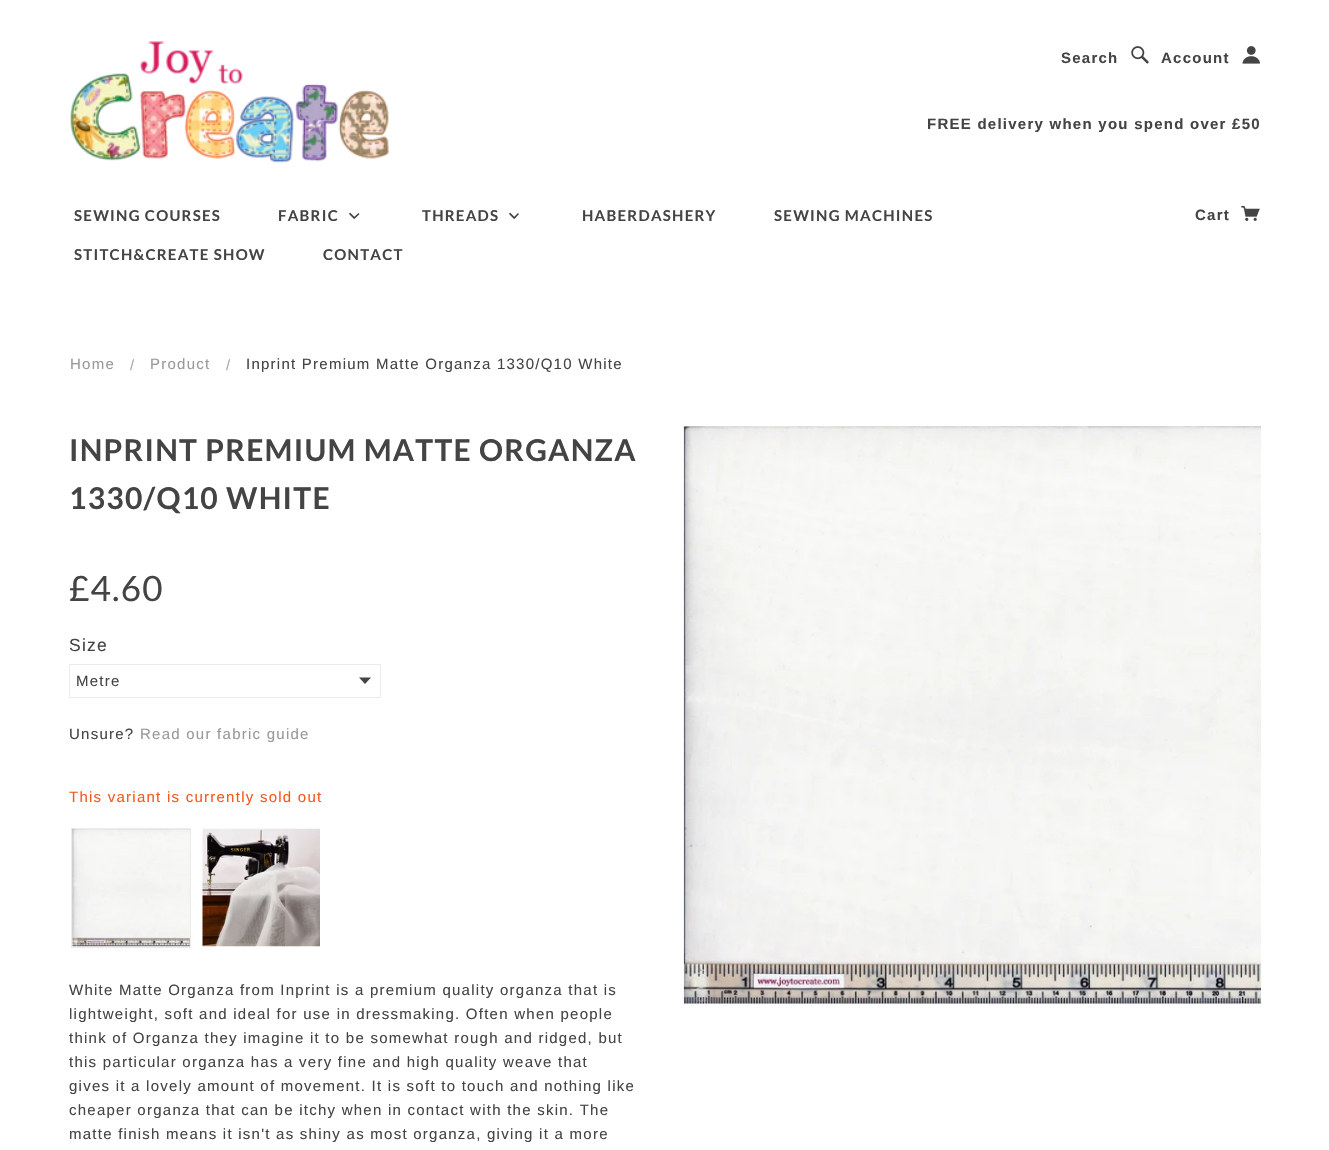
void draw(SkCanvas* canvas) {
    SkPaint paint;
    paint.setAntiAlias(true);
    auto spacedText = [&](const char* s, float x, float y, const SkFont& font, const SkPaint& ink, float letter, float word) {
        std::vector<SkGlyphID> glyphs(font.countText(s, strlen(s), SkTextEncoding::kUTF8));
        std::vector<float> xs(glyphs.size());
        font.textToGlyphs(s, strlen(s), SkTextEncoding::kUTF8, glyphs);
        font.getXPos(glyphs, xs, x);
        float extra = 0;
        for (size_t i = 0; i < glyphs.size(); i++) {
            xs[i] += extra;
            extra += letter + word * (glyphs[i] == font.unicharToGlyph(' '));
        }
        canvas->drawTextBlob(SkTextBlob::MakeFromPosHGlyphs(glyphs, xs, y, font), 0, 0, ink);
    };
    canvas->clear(0xFFFFFFFF);
    canvas->drawImageRect(SkImages::DeferredFromEncodedData(SkData::MakeFromFileName("img1.png")), SkRect::MakeXYWH(70, 41, 320, 122), SkSamplingOptions());
    SkFont font1(fontMgr->matchFamilyStyle("Liberation Sans", SkFontStyle::Bold()), 15);
    font1.setSubpixel(true);
    paint.setColor(0xFF444444);
    spacedText("Search", 1061, 63, font1, paint, 1.25f, 0);
    canvas->drawImageRect(SkImages::DeferredFromEncodedData(SkData::MakeFromFileName("img2.png")), SkRect::MakeXYWH(1131, 46, 18, 18), SkSamplingOptions());
    spacedText("Account", 1161, 63, font1, paint, 1.25f, 0);
    canvas->drawImageRect(SkImages::DeferredFromEncodedData(SkData::MakeFromFileName("img3.png")), SkRect::MakeXYWH(1242, 46, 18, 18), SkSamplingOptions());
    spacedText("FREE delivery when you spend over £50", 927, 129, font1, paint, 1.25f, 0);
    SkFont font2(fontMgr->matchFamilyStyle("Lato", SkFontStyle::Bold()), 15);
    font2.setSubpixel(true);
    spacedText("SEWING COURSES", 74, 221, font2, paint, 1.25f, 0);
    spacedText("FABRIC", 278, 221, font2, paint, 1.25f, 0);
    canvas->drawPath(SkPathBuilder().moveTo(358.5f, 213).lineTo(359.5f, 214).lineTo(354.5f, 219).lineTo(353.5f, 217.5f).close().detach(), paint);
    canvas->drawPath(SkPathBuilder().moveTo(350, 212.5f).lineTo(355, 217.5f).lineTo(354, 219).lineTo(349, 214).close().detach(), paint);
    spacedText("THREADS", 422, 221, font2, paint, 1.25f, 0);
    canvas->drawPath(SkPathBuilder().moveTo(518, 213).lineTo(519, 214).lineTo(514.5f, 219).lineTo(513.5f, 217.5f).close().detach(), paint);
    canvas->drawPath(SkPathBuilder().moveTo(510, 212.5f).lineTo(515, 217.5f).lineTo(514, 219).lineTo(509, 214).close().detach(), paint);
    spacedText("HABERDASHERY", 582, 221, font2, paint, 1.25f, 0);
    spacedText("SEWING MACHINES", 774, 221, font2, paint, 1.25f, 0);
    spacedText("STITCH&CREATE SHOW", 74, 260, font2, paint, 1.25f, 0);
    spacedText("CONTACT", 323, 260, font2, paint, 1.25f, 0);
    spacedText("Cart", 1195, 220, font1, paint, 1.25f, 0);
    canvas->drawImageRect(SkImages::DeferredFromEncodedData(SkData::MakeFromFileName("img4.png")), SkRect::MakeXYWH(1241, 205, 19, 16), SkSamplingOptions());
    SkFont font3(fontMgr->matchFamilyStyle("Liberation Sans", SkFontStyle::Normal()), 15);
    font3.setSubpixel(true);
    paint.setColor(0xFF999999);
    spacedText("Home", 70, 369, font3, paint, 1.25f, 0);
    paint.setColor(0xFFAAAAAA);
    spacedText("/", 130, 370, font3, paint, 1.25f, 0);
    paint.setColor(0xFF999999);
    spacedText("Product", 150, 369, font3, paint, 1.25f, 0);
    paint.setColor(0xFFAAAAAA);
    spacedText("/", 226, 370, font3, paint, 1.25f, 0);
    paint.setColor(0xFF444444);
    spacedText("Inprint Premium Matte Organza 1330/Q10 White", 246, 369, font3, paint, 1.25f, 0);
    SkFont font4(fontMgr->matchFamilyStyle("Lato", SkFontStyle::Bold()), 30);
    font4.setSubpixel(true);
    spacedText("INPRINT PREMIUM MATTE ORGANZA", 69, 461, font4, paint, 1.25f, 0);
    spacedText("1330/Q10 WHITE", 69, 509, font4, paint, 1.25f, 0);
    SkFont font5(fontMgr->matchFamilyStyle("Lato", SkFontStyle::Normal()), 35);
    font5.setSubpixel(true);
    spacedText("£4.60", 69, 601, font5, paint, 1.25f, 0);
    SkFont font6(fontMgr->matchFamilyStyle("Liberation Sans", SkFontStyle::Normal()), 17.5f);
    font6.setSubpixel(true);
    spacedText("Size", 69, 651, font6, paint, 1.25f, 0);
    paint.setStyle(SkPaint::kStroke_Style);
    paint.setStrokeWidth(1);
    paint.setColor(0xFFEBEBEB);
    canvas->drawRect(SkRect::MakeXYWH(69.5f, 664.5f, 311, 33), paint);
    paint.setStyle(SkPaint::kFill_Style);
    paint.setColor(0xFF444444);
    spacedText("Metre", 76, 686, font3, paint, 1.25f, 0);
    canvas->drawPath(SkPathBuilder().moveTo(359, 677.5f).lineTo(371, 677.5f).lineTo(365, 684).close().detach(), paint);
    spacedText("Unsure?", 69, 739, font3, paint, 1.25f, 0);
    paint.setColor(0xFF999999);
    spacedText("Read our fabric guide", 140, 739, font3, paint, 1.25f, 0);
    paint.setColor(0xFFF25A1D);
    spacedText("This variant is currently sold out", 69, 802, font3, paint, 1.25f, 0);
    canvas->drawImageRect(SkImages::DeferredFromEncodedData(SkData::MakeFromFileName("img5.png")), SkRect::MakeXYWH(72, 829, 118, 118), SkSamplingOptions());
    paint.setStyle(SkPaint::kStroke_Style);
    paint.setColor(0xFFEBEBEB);
    canvas->drawRect(SkRect::MakeXYWH(71.5f, 828.5f, 119, 119), paint);
    canvas->drawImageRect(SkImages::DeferredFromEncodedData(SkData::MakeFromFileName("img6.png")), SkRect::MakeXYWH(202, 828, 118, 119), SkSamplingOptions());
    paint.setStyle(SkPaint::kFill_Style);
    paint.setColor(0xFF444444);
    spacedText("White Matte Organza from Inprint is a premium quality organza that is", 69, 995, font3, paint, 1.25f, 0);
    spacedText("lightweight, soft and ideal for use in dressmaking. Often when people", 69, 1019, font3, paint, 1.25f, 0);
    spacedText("think of Organza they imagine it to be somewhat rough and ridged, but", 69, 1043, font3, paint, 1.25f, 0);
    spacedText("this particular organza has a very fine and high quality weave that", 69, 1067, font3, paint, 1.25f, 0);
    spacedText("gives it a lovely amount of movement. It is soft to touch and nothing like", 69, 1091, font3, paint, 1.25f, 0);
    spacedText("cheaper organza that can be itchy when in contact with the skin. The", 69, 1115, font3, paint, 1.25f, 0);
    spacedText("matte finish means it isn't as shiny as most organza, giving it a more", 69, 1139, font3, paint, 1.25f, 0);
    canvas->drawImageRect(SkImages::DeferredFromEncodedData(SkData::MakeFromFileName("img7.png")), SkRect::MakeXYWH(683, 426, 579, 578), SkSamplingOptions());
}
